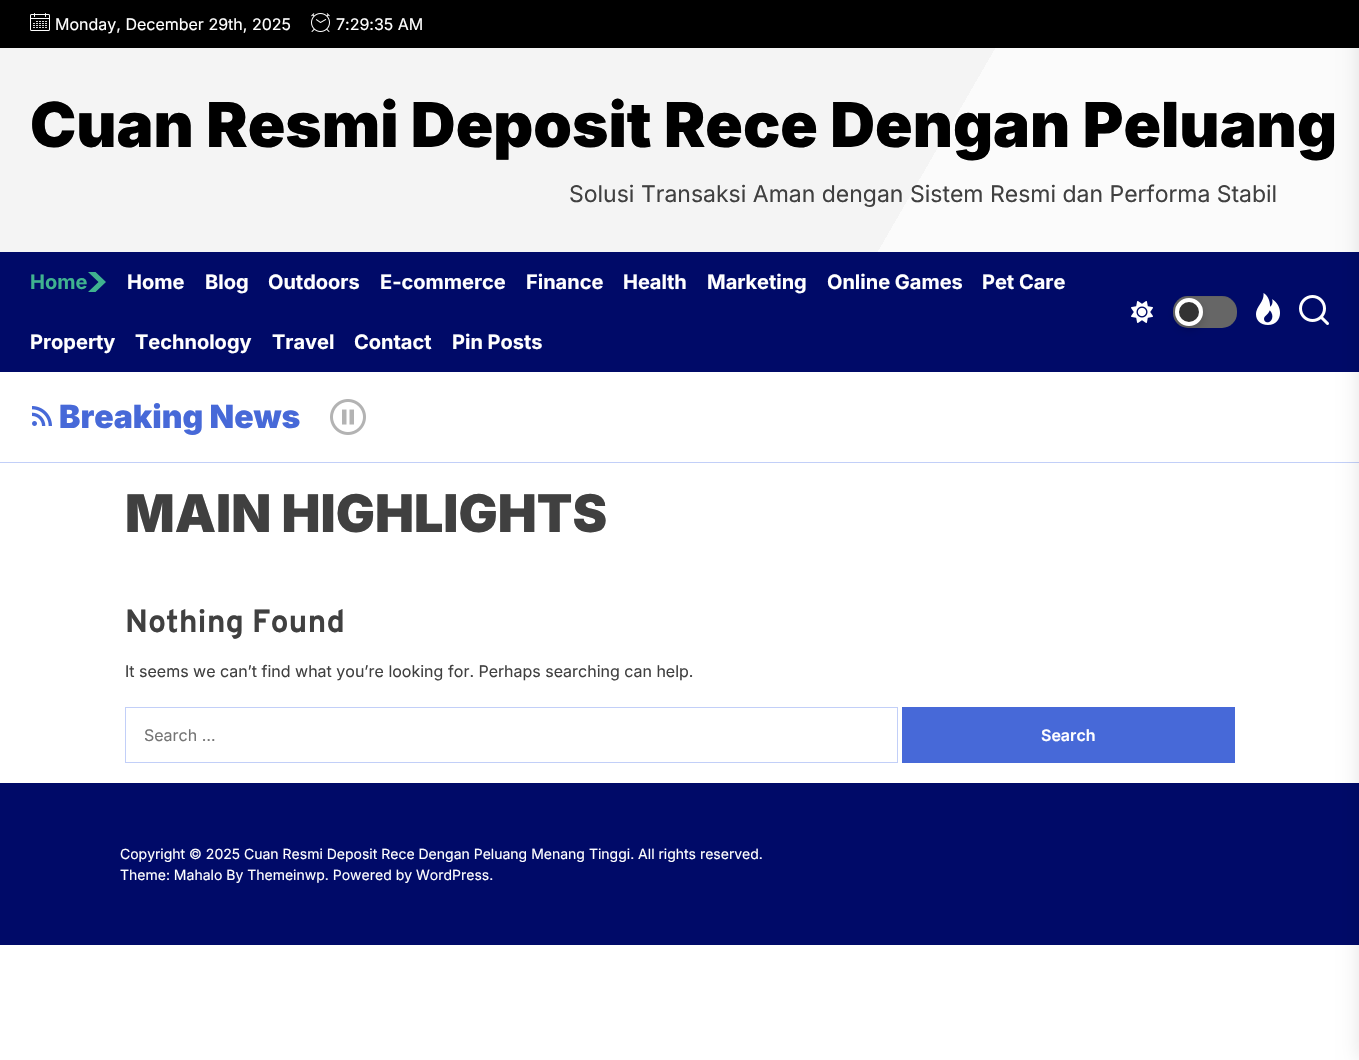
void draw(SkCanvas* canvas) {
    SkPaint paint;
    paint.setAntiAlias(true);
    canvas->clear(0xFFFFFFFF);
    {
        const SkColor colors[] = {0xFFFBFBFB, 0xFFF4F4F4};
        const float stops[] = {0.35f, 0.35f};
        const SkPoint ends[] = {{1270, 527}, {89, -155}};
        paint.setShader(SkGradientShader::MakeLinear(ends, colors, stops, 2, SkTileMode::kClamp));
        paint.setAlpha(255);
    }
    canvas->drawRect(SkRect::MakeXYWH(0, 48, 1359, 204), paint);
    paint.setShader(nullptr);
    paint.setColor(0xFF000000);
    canvas->drawRect(SkRect::MakeXYWH(0, 0, 1359, 48), paint);
    canvas->drawImageRect(SkImages::DeferredFromEncodedData(SkData::MakeFromFileName("img1.png")), SkRect::MakeXYWH(30, 13, 20, 18), SkSamplingOptions());
    SkFont font1(fontMgr->matchFamilyStyle("Inter", SkFontStyle::Normal()), 16);
    font1.setSubpixel(true);
    paint.setColor(0xFFFFFFFF);
    canvas->drawString("Monday, December 29th, 2025", 55, 30, font1, paint);
    canvas->drawImageRect(SkImages::DeferredFromEncodedData(SkData::MakeFromFileName("img2.png")), SkRect::MakeXYWH(311, 13, 19, 19), SkSamplingOptions());
    canvas->drawString("7:29:35 AM", 336, 30, font1, paint);
    SkFont font2(fontMgr->matchFamilyStyle("Inter", SkFontStyle(900, SkFontStyle::kNormal_Width, SkFontStyle::kUpright_Slant)), 62);
    font2.setSubpixel(true);
    paint.setColor(0xFF000000);
    canvas->drawString("Cuan Resmi Deposit Rece Dengan Peluang", 30, 147, font2, paint);
    SkFont font3(fontMgr->matchFamilyStyle("Inter", SkFontStyle::Normal()), 23);
    font3.setSubpixel(true);
    paint.setColor(0xFF404040);
    canvas->drawString("Solusi Transaksi Aman dengan Sistem Resmi dan Performa Stabil", 569, 202, font3, paint);
    paint.setColor(0xFF000A68);
    canvas->drawRect(SkRect::MakeXYWH(0, 252, 1359, 120), paint);
    SkFont font4(fontMgr->matchFamilyStyle("Inter", SkFontStyle::Bold()), 20);
    font4.setSubpixel(true);
    paint.setColor(0xFF3FB28F);
    canvas->drawString("Home", 30, 289, font4, paint);
    canvas->drawPath(SkPathBuilder().moveTo(98.5f, 282).lineTo(88, 272).lineTo(95.5f, 272).lineTo(106, 282).lineTo(95.5f, 292).lineTo(88, 292).close().detach(), paint);
    paint.setColor(0xFFFFFFFF);
    canvas->drawString("Home", 127, 289, font4, paint);
    canvas->drawString("Blog", 205, 289, font4, paint);
    canvas->drawString("Outdoors", 268, 289, font4, paint);
    canvas->drawString("E-commerce", 380, 289, font4, paint);
    canvas->drawString("Finance", 526, 289, font4, paint);
    canvas->drawString("Health", 623, 289, font4, paint);
    canvas->drawString("Marketing", 707, 289, font4, paint);
    canvas->drawString("Online Games", 827, 289, font4, paint);
    canvas->drawString("Pet Care", 982, 289, font4, paint);
    canvas->drawString("Property", 30, 349, font4, paint);
    canvas->drawString("Technology", 135, 349, font4, paint);
    canvas->drawString("Travel", 272, 349, font4, paint);
    canvas->drawString("Contact", 354, 349, font4, paint);
    canvas->drawString("Pin Posts", 452, 349, font4, paint);
    canvas->drawImageRect(SkImages::DeferredFromEncodedData(SkData::MakeFromFileName("img3.png")), SkRect::MakeXYWH(1131, 301, 22, 22), SkSamplingOptions());
    paint.setColor(0xFF666666);
    canvas->drawRoundRect(SkRect::MakeXYWH(1173, 296, 64, 32), 15, 15, paint);
    paint.setColor(0x0D000000);
    canvas->drawPath(SkPathBuilder().moveTo(1188, 297).cubicTo(1192, 297, 1223, 296, 1228, 298).cubicTo(1234, 301, 1237, 307, 1237, 313).cubicTo(1237, 293, 1220, 296, 1205, 296).cubicTo(1193, 296, 1174, 293, 1173, 310).cubicTo(1174, 303, 1180, 297, 1188, 297).close().detach(), paint);
    paint.setColor(0x29000000);
    paint.setMaskFilter(SkMaskFilter::MakeBlur(kNormal_SkBlurStyle, 4));
    canvas->drawRoundRect(SkRect::MakeXYWH(1175, 302, 28, 28), 14, 14, paint);
    paint.setMaskFilter(nullptr);
    paint.setColor(0xFF333333);
    canvas->drawCircle(1189, 312, 12, paint);
    paint.setStyle(SkPaint::kStroke_Style);
    paint.setStrokeWidth(4);
    paint.setColor(0xFFFFFFFF);
    canvas->drawCircle(1189, 312, 12, paint);
    canvas->drawImageRect(SkImages::DeferredFromEncodedData(SkData::MakeFromFileName("img4.png")), SkRect::MakeXYWH(1256, 293, 24, 32), SkSamplingOptions());
    canvas->drawImageRect(SkImages::DeferredFromEncodedData(SkData::MakeFromFileName("img5.png")), SkRect::MakeXYWH(1299, 295, 30, 30), SkSamplingOptions());
    paint.setStyle(SkPaint::kFill_Style);
    paint.setColor(0xFFC2CFF8);
    canvas->drawRect(SkRect::MakeXYWH(0, 462, 1359, 1), paint);
    paint.setColor(0xFF000A68);
    canvas->drawRect(SkRect::MakeXYWH(0, 783, 1359, 162), paint);
    paint.setColor(0x1A000000);
    paint.setMaskFilter(SkMaskFilter::MakeBlur(kNormal_SkBlurStyle, 10));
    canvas->drawRect(SkRect::MakeXYWH(1359, 0, 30, 1060), paint);
    paint.setMaskFilter(nullptr);
    canvas->drawImageRect(SkImages::DeferredFromEncodedData(SkData::MakeFromFileName("img6.png")), SkRect::MakeXYWH(32, 406, 20, 20), SkSamplingOptions());
    SkFont font5(fontMgr->matchFamilyStyle("Inter", SkFontStyle(900, SkFontStyle::kNormal_Width, SkFontStyle::kUpright_Slant)), 32);
    font5.setSubpixel(true);
    paint.setColor(0xFF4769D8);
    canvas->drawString("Breaking News", 59, 428, font5, paint);
    canvas->drawImageRect(SkImages::DeferredFromEncodedData(SkData::MakeFromFileName("img7.png")), SkRect::MakeXYWH(330, 399, 36, 36), SkSamplingOptions());
    SkFont font6(fontMgr->matchFamilyStyle("Inter", SkFontStyle(900, SkFontStyle::kNormal_Width, SkFontStyle::kUpright_Slant)), 52);
    font6.setSubpixel(true);
    paint.setColor(0xFF404040);
    canvas->drawString("MAIN HIGHLIGHTS", 125, 532, font6, paint);
    SkFont font7(fontMgr->matchFamilyStyle("Overpass", SkFontStyle::Bold()), 32);
    font7.setSubpixel(true);
    canvas->drawString("Nothing Found", 125, 632, font7, paint);
    canvas->drawString("It seems we can’t find what you’re looking for. Perhaps searching can help.", 125, 677, font1, paint);
    paint.setStyle(SkPaint::kStroke_Style);
    paint.setStrokeWidth(1);
    paint.setColor(0xFFC2CFF8);
    canvas->drawRect(SkRect::MakeXYWH(125.5f, 707.5f, 772, 55), paint);
    paint.setStyle(SkPaint::kFill_Style);
    paint.setColor(0xFF757575);
    canvas->drawString("Search …", 144, 741, font1, paint);
    paint.setColor(0xFF4769D8);
    canvas->drawRect(SkRect::MakeXYWH(902, 707, 333, 56), paint);
    SkFont font8(fontMgr->matchFamilyStyle("Inter", SkFontStyle(600, SkFontStyle::kNormal_Width, SkFontStyle::kUpright_Slant)), 16);
    font8.setSubpixel(true);
    paint.setColor(0xFFFFFFFF);
    canvas->drawString("Search", 1041, 741, font8, paint);
    SkFont font9(fontMgr->matchFamilyStyle("Inter", SkFontStyle::Normal()), 14);
    font9.setSubpixel(true);
    canvas->drawString("Copyright © 2025 Cuan Resmi Deposit Rece Dengan Peluang Menang Tinggi. All rights reserved.", 120, 859, font9, paint);
    canvas->drawString("Theme: Mahalo By Themeinwp. Powered by WordPress.", 120, 880, font9, paint);
}
